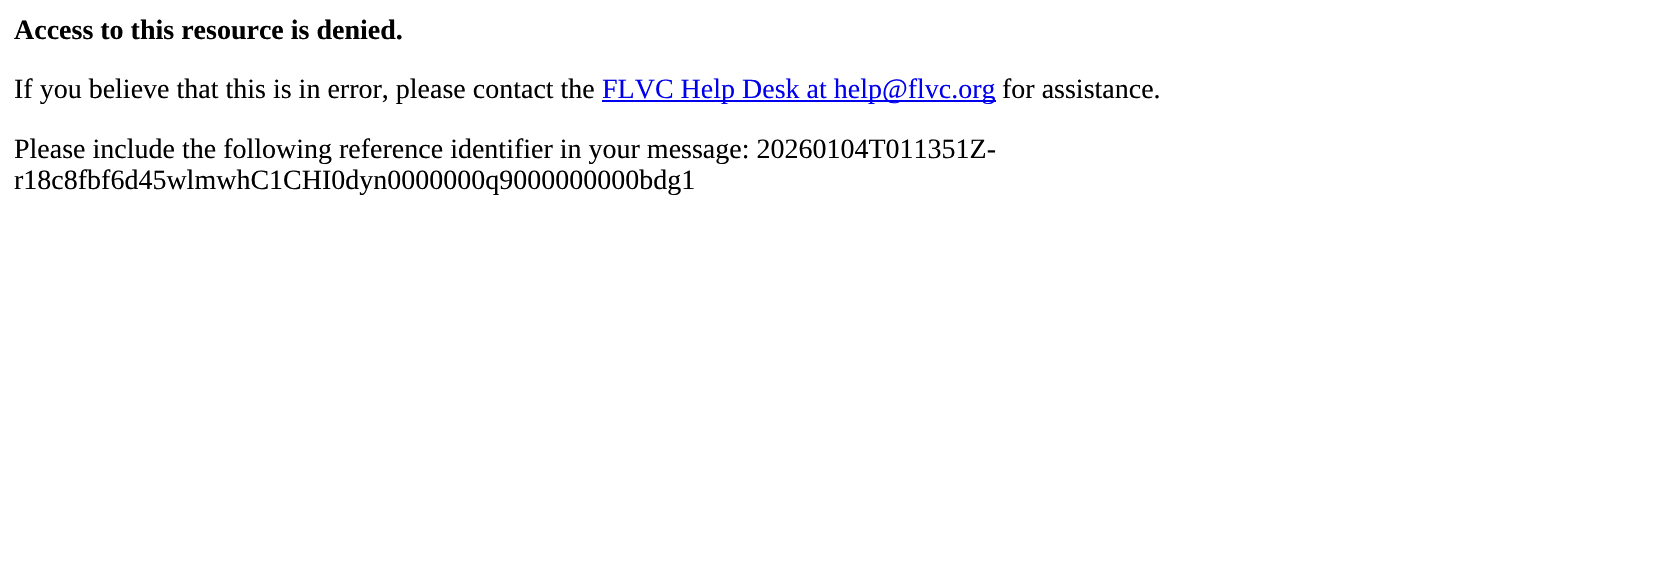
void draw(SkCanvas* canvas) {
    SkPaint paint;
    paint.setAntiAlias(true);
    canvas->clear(0xFFFFFFFF);
    SkFont font1(fontMgr->matchFamilyStyle("Liberation Serif", SkFontStyle::Bold()), 28);
    font1.setSubpixel(true);
    paint.setColor(0xFF000000);
    canvas->drawString("Access to this resource is denied.", 14, 39, font1, paint);
    SkFont font2(fontMgr->matchFamilyStyle("Liberation Serif", SkFontStyle::Normal()), 28);
    font2.setSubpixel(true);
    canvas->drawString("If you believe that this is in error, please contact the", 14, 98, font2, paint);
    paint.setColor(0xFF0000EE);
    canvas->drawRect(SkRect::MakeXYWH(602, 100, 394, 2), paint);
    canvas->drawString("FLVC Help Desk at help@flvc.org", 602, 98, font2, paint);
    paint.setColor(0xFF000000);
    canvas->drawString("for assistance.", 1002, 98, font2, paint);
    canvas->drawString("Please include the following reference identifier in your message: 20260104T011351Z-", 14, 158, font2, paint);
    canvas->drawString("r18c8fbf6d45wlmwhC1CHI0dyn0000000q9000000000bdg1", 14, 189, font2, paint);
}
